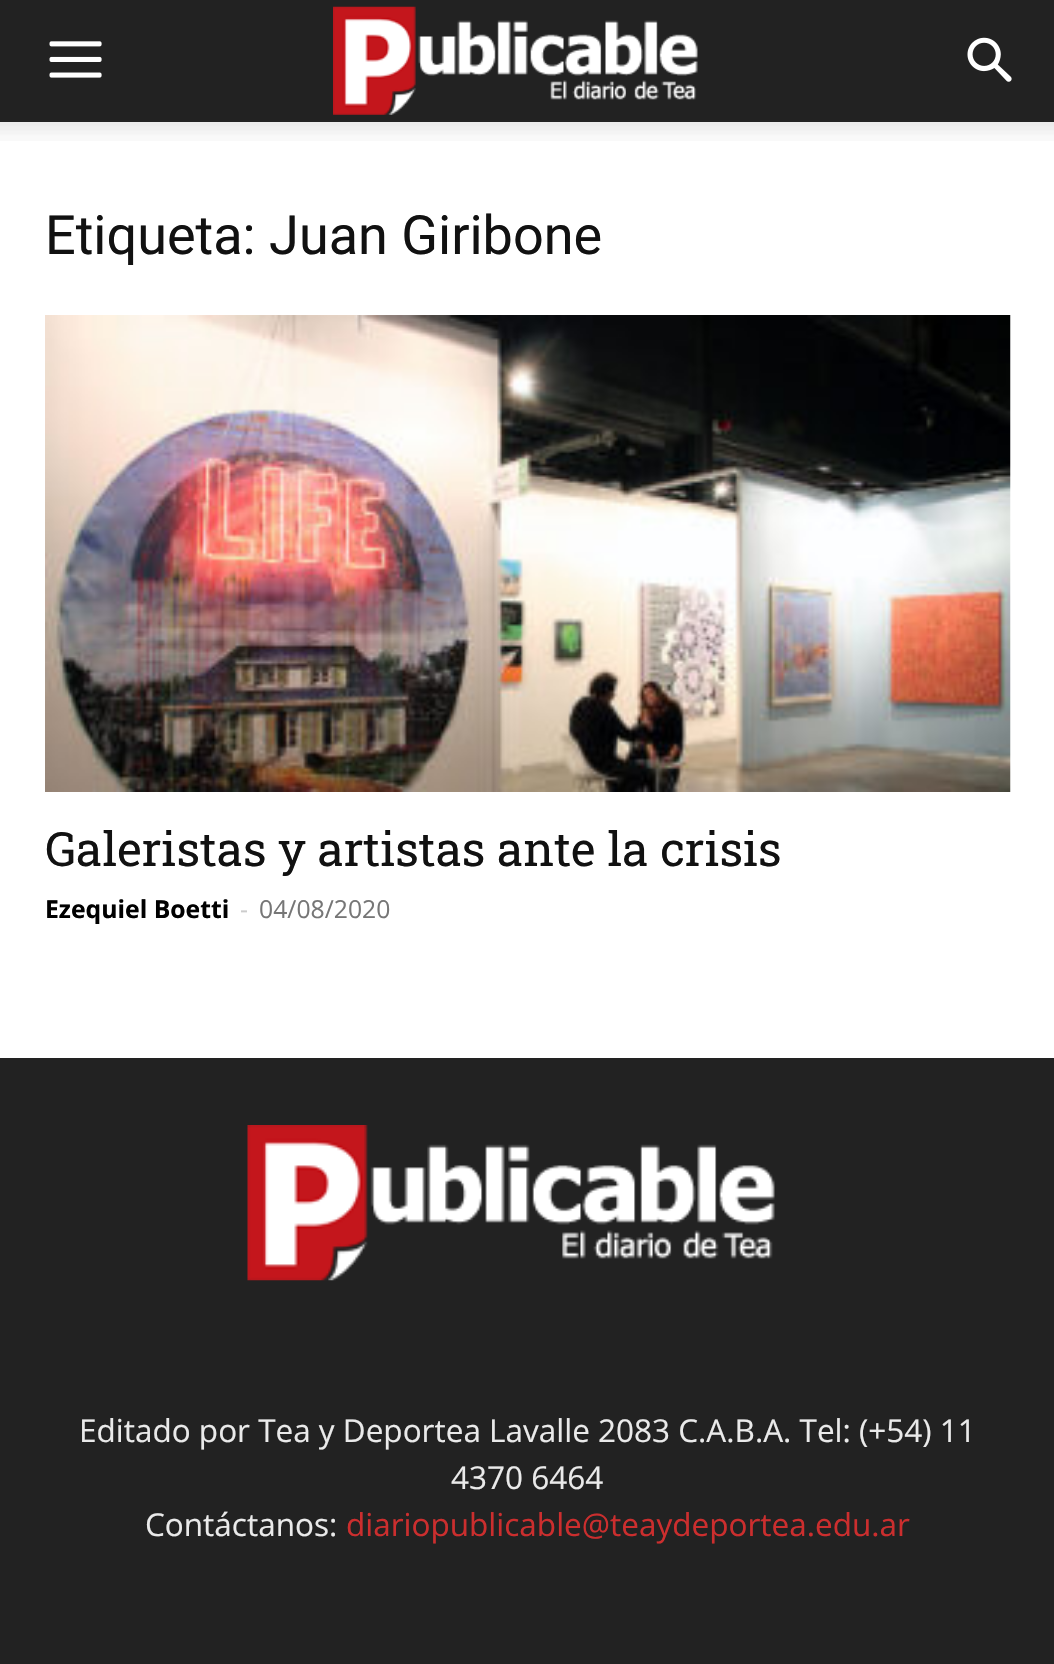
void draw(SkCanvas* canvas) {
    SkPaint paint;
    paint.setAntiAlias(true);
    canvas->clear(0xFFFFFFFF);
    paint.setColor(0xFF222222);
    canvas->drawRect(SkRect::MakeXYWH(0, 0, 1054, 122), paint);
    canvas->drawImageRect(SkImages::DeferredFromEncodedData(SkData::MakeFromFileName("img1.png")), SkRect::MakeXYWH(49, 41, 53, 37), SkSamplingOptions());
    canvas->drawImageRect(SkImages::DeferredFromEncodedData(SkData::MakeFromFileName("img2.png")), SkRect::MakeXYWH(333, 6, 365, 109), SkSamplingOptions());
    canvas->drawImageRect(SkImages::DeferredFromEncodedData(SkData::MakeFromFileName("img3.png")), SkRect::MakeXYWH(967, 37, 45, 45), SkSamplingOptions());
    canvas->drawImageRect(SkImages::DeferredFromEncodedData(SkData::MakeFromFileName("img4.png")), SkRect::MakeXYWH(0, 122, 1054, 19), SkSamplingOptions());
    SkFont font1(fontMgr->matchFamilyStyle("Roboto", SkFontStyle::Normal()), 54);
    font1.setSubpixel(true);
    paint.setColor(0xFF111111);
    canvas->drawString("Etiqueta: Juan Giribone", 45, 254, font1, paint);
    canvas->drawImageRect(SkImages::DeferredFromEncodedData(SkData::MakeFromFileName("img5.png")), SkRect::MakeXYWH(45, 315, 966, 477), SkSamplingOptions());
    SkFont font2(fontMgr->matchFamilyStyle("Roboto Slab", SkFontStyle::Normal()), 47.25f);
    font2.setSubpixel(true);
    canvas->drawString("Galeristas y artistas ante la crisis", 45, 866, font2, paint);
    SkFont font3(fontMgr->matchFamilyStyle("Open Sans", SkFontStyle::Bold()), 24.75f);
    font3.setSubpixel(true);
    paint.setColor(0xFF000000);
    canvas->drawString("Ezequiel Boetti", 45, 918, font3, paint);
    SkFont font4(fontMgr->matchFamilyStyle("Open Sans", SkFontStyle::Normal()), 24.75f);
    font4.setSubpixel(true);
    paint.setColor(0xFFCCCCCC);
    canvas->drawString("-", 240, 918, font4, paint);
    paint.setColor(0xFF767676);
    canvas->drawString("04/08/2020", 259, 918, font4, paint);
    paint.setColor(0xFF222222);
    canvas->drawRect(SkRect::MakeXYWH(0, 1058, 1054, 606), paint);
    canvas->drawImageRect(SkImages::DeferredFromEncodedData(SkData::MakeFromFileName("img6.png")), SkRect::MakeXYWH(247, 1125, 528, 156), SkSamplingOptions());
    SkFont font5(fontMgr->matchFamilyStyle("Open Sans", SkFontStyle::Normal()), 31.5f);
    font5.setSubpixel(true);
    paint.setColor(0xFFEAEAEA);
    canvas->drawString("Editado por Tea y Deportea Lavalle 2083 C.A.B.A. Tel: (+54) 11", 79, 1442, font5, paint);
    canvas->drawString("4370 6464", 451, 1489, font5, paint);
    canvas->drawString("Contáctanos:", 145, 1536, font5, paint);
    paint.setColor(0xFFCC2E2E);
    canvas->drawString("diariopublicable@teaydeportea.edu.ar", 346, 1536, font5, paint);
}
